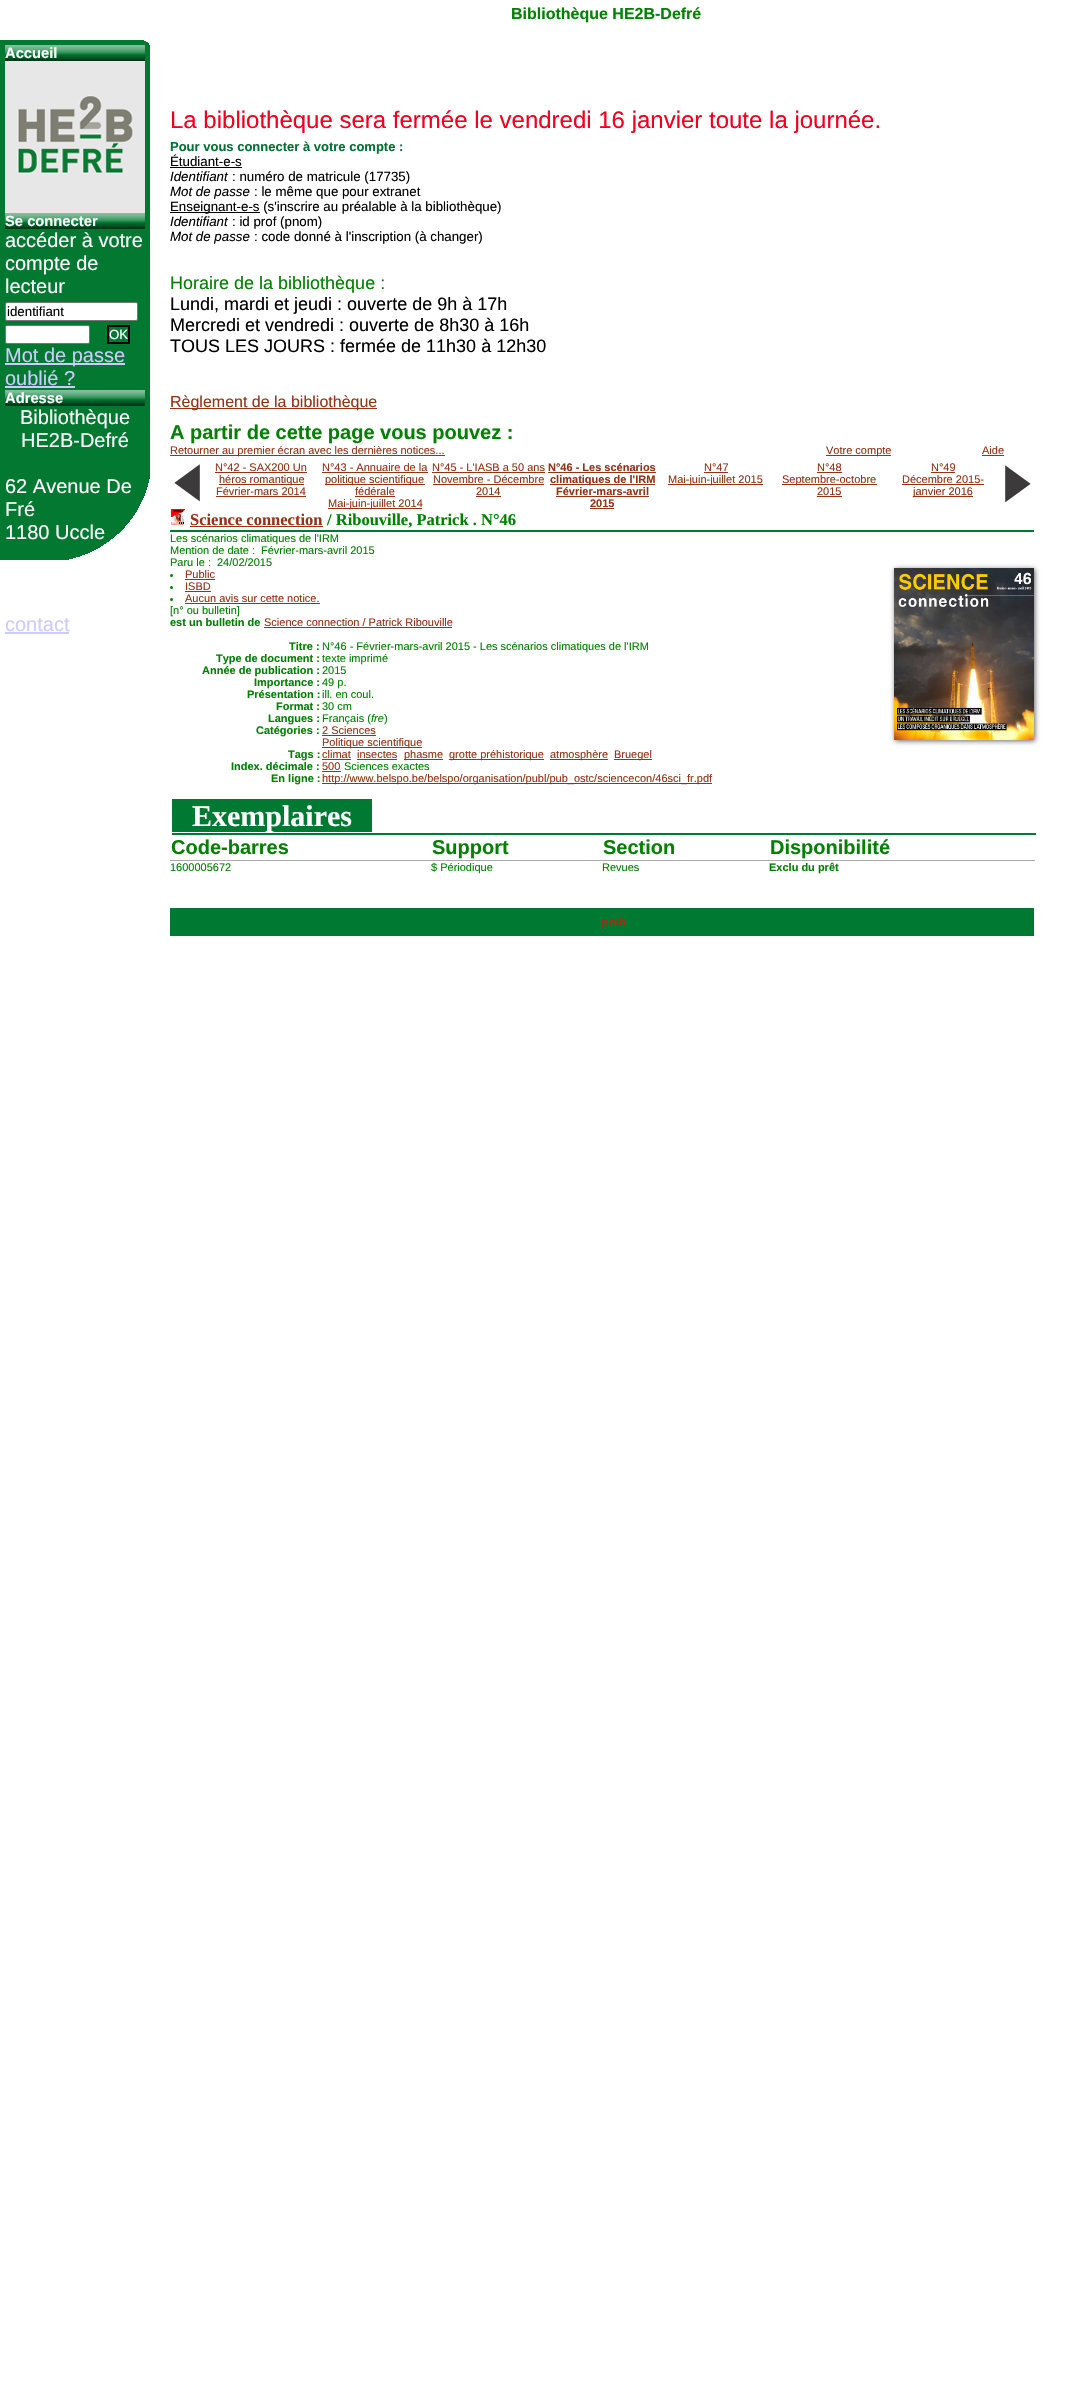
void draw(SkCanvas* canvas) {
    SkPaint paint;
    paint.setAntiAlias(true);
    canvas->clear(0xFFFFFFFF);
    SkFont font1(fontMgr->matchFamilyStyle("Liberation Sans", SkFontStyle::Bold()), 16);
    font1.setSubpixel(true);
    paint.setColor(0xFF008000);
    canvas->drawString("Bibliothèque HE2B-Defré", 511, 19, font1, paint);
    canvas->drawImageRect(SkImages::DeferredFromEncodedData(SkData::MakeFromFileName("img1.png")), SkRect::MakeXYWH(0, 40, 150, 520), SkSamplingOptions());
    canvas->drawImageRect(SkImages::DeferredFromEncodedData(SkData::MakeFromFileName("img2.png")), SkRect::MakeXYWH(5, 45, 140, 16), SkSamplingOptions());
    SkFont font2(fontMgr->matchFamilyStyle("Liberation Sans", SkFontStyle::Bold()), 14.75f);
    font2.setSubpixel(true);
    paint.setColor(0xFFFFFFFF);
    canvas->drawString("Accueil", 5, 58, font2, paint);
    canvas->drawImageRect(SkImages::DeferredFromEncodedData(SkData::MakeFromFileName("img3.png")), SkRect::MakeXYWH(5, 61, 140, 152), SkSamplingOptions());
    canvas->drawImageRect(SkImages::DeferredFromEncodedData(SkData::MakeFromFileName("img2.png")), SkRect::MakeXYWH(5, 213, 140, 16), SkSamplingOptions());
    canvas->drawString("Se connecter", 5, 226, font2, paint);
    SkFont font3(fontMgr->matchFamilyStyle("Liberation Sans", SkFontStyle::Normal()), 20);
    font3.setSubpixel(true);
    canvas->drawString("accéder à votre", 5, 247, font3, paint);
    canvas->drawString("compte de", 5, 270, font3, paint);
    canvas->drawString("lecteur", 5, 293, font3, paint);
    canvas->drawRoundRect(SkRect::MakeXYWH(5.5f, 302.5f, 132, 18), 1.5f, 1.5f, paint);
    paint.setStyle(SkPaint::kStroke_Style);
    paint.setStrokeWidth(1);
    paint.setColor(0xFF767676);
    canvas->drawRoundRect(SkRect::MakeXYWH(5.5f, 302.5f, 132, 18), 1.5f, 1.5f, paint);
    SkFont font4(fontMgr->matchFamilyStyle("Liberation Sans", SkFontStyle::Normal()), 13.3f);
    font4.setSubpixel(true);
    paint.setStyle(SkPaint::kFill_Style);
    paint.setColor(0xFF000000);
    canvas->drawString("identifiant", 7, 316, font4, paint);
    paint.setColor(0xFFFFFFFF);
    canvas->drawRoundRect(SkRect::MakeXYWH(5.5f, 325.5f, 84, 18), 1.5f, 1.5f, paint);
    paint.setStyle(SkPaint::kStroke_Style);
    paint.setColor(0xFF767676);
    canvas->drawRoundRect(SkRect::MakeXYWH(5.5f, 325.5f, 84, 18), 1.5f, 1.5f, paint);
    paint.setStyle(SkPaint::kFill_Style);
    paint.setColor(0xFF007A33);
    canvas->drawRect(SkRect::MakeXYWH(108, 326, 21, 17), paint);
    paint.setStyle(SkPaint::kStroke_Style);
    paint.setStrokeWidth(2);
    paint.setColor(0xFF000000);
    canvas->drawRect(SkRect::MakeXYWH(108, 326, 21, 17), paint);
    paint.setStyle(SkPaint::kFill_Style);
    paint.setColor(0xFFFFFFFF);
    canvas->drawString("OK", 109, 339, font4, paint);
    paint.setColor(0xFFCCCCFF);
    canvas->drawRect(SkRect::MakeXYWH(5, 363, 120, 2), paint);
    canvas->drawString("Mot de passe", 5, 362, font3, paint);
    canvas->drawString("oublié ?", 5, 385, font3, paint);
    canvas->drawRect(SkRect::MakeXYWH(5, 386, 70, 2), paint);
    canvas->drawImageRect(SkImages::DeferredFromEncodedData(SkData::MakeFromFileName("img2.png")), SkRect::MakeXYWH(5, 390, 140, 16), SkSamplingOptions());
    paint.setColor(0xFFFFFFFF);
    canvas->drawString("Adresse", 5, 403, font2, paint);
    canvas->drawString("Bibliothèque", 20, 424, font3, paint);
    canvas->drawString("HE2B-Defré", 21, 447, font3, paint);
    canvas->drawString("62 Avenue De", 5, 493, font3, paint);
    canvas->drawString("Fré", 5, 516, font3, paint);
    canvas->drawString("1180 Uccle", 5, 539, font3, paint);
    paint.setColor(0xFFCCCCFF);
    canvas->drawString("contact", 5, 631, font3, paint);
    canvas->drawRect(SkRect::MakeXYWH(5, 632, 64, 2), paint);
    SkFont font5(fontMgr->matchFamilyStyle("Liberation Sans", SkFontStyle::Normal()), 24);
    font5.setSubpixel(true);
    paint.setColor(0xFFF00020);
    canvas->drawString("La bibliothèque sera fermée le vendredi 16 janvier toute la journée.", 170, 128, font5, paint);
    SkFont font6(fontMgr->matchFamilyStyle("Liberation Sans", SkFontStyle::Bold()), 13);
    font6.setSubpixel(true);
    paint.setColor(0xFF007133);
    canvas->drawString("Pour vous connecter à votre compte :", 170, 151, font6, paint);
    paint.setColor(0xFF000000);
    canvas->drawString("Étudiant-e-s", 170, 166, font4, paint);
    canvas->drawRect(SkRect::MakeXYWH(170, 167, 72, 1), paint);
    SkFont font7(fontMgr->matchFamilyStyle("Liberation Sans", SkFontStyle::Italic()), 13.3f);
    font7.setSubpixel(true);
    canvas->drawString("Identifiant", 170, 181, font7, paint);
    canvas->drawString(": numéro de matricule (17735)", 232, 181, font4, paint);
    canvas->drawString("Mot de passe", 170, 196, font7, paint);
    canvas->drawString(": le même que pour extranet", 254, 196, font4, paint);
    canvas->drawRect(SkRect::MakeXYWH(170, 212, 90, 1), paint);
    canvas->drawString("Enseignant-e-s (s'inscrire au préalable à la bibliothèque)", 170, 211, font4, paint);
    canvas->drawString("Identifiant", 170, 226, font7, paint);
    canvas->drawString(": id prof (pnom)", 232, 226, font4, paint);
    canvas->drawString("Mot de passe", 170, 241, font7, paint);
    canvas->drawString(": code donné à l'inscription (à changer)", 254, 241, font4, paint);
    SkFont font8(fontMgr->matchFamilyStyle("Liberation Sans", SkFontStyle::Normal()), 18);
    font8.setSubpixel(true);
    paint.setColor(0xFF008000);
    canvas->drawString("Horaire de la bibliothèque :", 170, 289, font8, paint);
    paint.setColor(0xFF000000);
    canvas->drawString("Lundi, mardi et jeudi : ouverte de 9h à 17h", 170, 310, font8, paint);
    canvas->drawString("Mercredi et vendredi : ouverte de 8h30 à 16h", 170, 331, font8, paint);
    canvas->drawString("TOUS LES JOURS : fermée de 11h30 à 12h30", 170, 352, font8, paint);
    paint.setColor(0xFF943316);
    canvas->drawRect(SkRect::MakeXYWH(170, 408, 207, 1), paint);
    SkFont font9(fontMgr->matchFamilyStyle("Liberation Sans", SkFontStyle::Normal()), 16);
    font9.setSubpixel(true);
    canvas->drawString("Règlement de la bibliothèque", 170, 407, font9, paint);
    SkFont font10(fontMgr->matchFamilyStyle("Liberation Sans", SkFontStyle::Bold()), 20);
    font10.setSubpixel(true);
    paint.setColor(0xFF008000);
    canvas->drawString("A partir de cette page vous pouvez :", 170, 439, font10, paint);
    paint.setColor(0xFF943316);
    canvas->drawRect(SkRect::MakeXYWH(170, 455, 275, 1), paint);
    SkFont font11(fontMgr->matchFamilyStyle("Liberation Sans", SkFontStyle::Normal()), 11);
    font11.setSubpixel(true);
    canvas->drawString("Retourner au premier écran avec les dernières notices...", 170, 454, font11, paint);
    canvas->drawRect(SkRect::MakeXYWH(826, 455, 65, 1), paint);
    canvas->drawString("Votre compte", 826, 454, font11, paint);
    canvas->drawString("Aide", 982, 454, font11, paint);
    canvas->drawRect(SkRect::MakeXYWH(982, 455, 22, 1), paint);
    canvas->drawImageRect(SkImages::DeferredFromEncodedData(SkData::MakeFromFileName("img4.png")), SkRect::MakeXYWH(174, 464, 26, 38), SkSamplingOptions());
    canvas->drawString("N°42 - SAX200 Un", 215, 471, font11, paint);
    canvas->drawRect(SkRect::MakeXYWH(215, 472, 92, 1), paint);
    canvas->drawRect(SkRect::MakeXYWH(219, 484, 85, 1), paint);
    canvas->drawString("héros romantique", 219, 483, font11, paint);
    canvas->drawString("Février-mars 2014", 216, 495, font11, paint);
    canvas->drawRect(SkRect::MakeXYWH(216, 496, 90, 1), paint);
    canvas->drawString("N°43 - Annuaire de la", 322, 471, font11, paint);
    canvas->drawRect(SkRect::MakeXYWH(322, 472, 106, 1), paint);
    canvas->drawRect(SkRect::MakeXYWH(325, 484, 100, 1), paint);
    canvas->drawString("politique scientifique", 325, 483, font11, paint);
    canvas->drawString("fédérale", 355, 495, font11, paint);
    canvas->drawRect(SkRect::MakeXYWH(355, 496, 40, 1), paint);
    canvas->drawRect(SkRect::MakeXYWH(328, 508, 94, 1), paint);
    canvas->drawString("Mai-juin-juillet 2014", 328, 507, font11, paint);
    canvas->drawString("N°45 - L'IASB a 50 ans", 432, 471, font11, paint);
    canvas->drawRect(SkRect::MakeXYWH(432, 472, 113, 1), paint);
    canvas->drawString("Novembre - Décembre", 433, 483, font11, paint);
    canvas->drawRect(SkRect::MakeXYWH(433, 484, 111, 1), paint);
    canvas->drawString("2014", 476, 495, font11, paint);
    canvas->drawRect(SkRect::MakeXYWH(476, 496, 25, 1), paint);
    SkFont font12(fontMgr->matchFamilyStyle("Liberation Sans", SkFontStyle::Bold()), 11);
    font12.setSubpixel(true);
    canvas->drawString("N°46 - Les scénarios", 548, 471, font12, paint);
    canvas->drawRect(SkRect::MakeXYWH(548, 472, 108, 1), paint);
    canvas->drawRect(SkRect::MakeXYWH(550, 484, 105, 1), paint);
    canvas->drawString("climatiques de l'IRM", 550, 483, font12, paint);
    canvas->drawString("Février-mars-avril", 556, 495, font12, paint);
    canvas->drawRect(SkRect::MakeXYWH(556, 496, 93, 1), paint);
    canvas->drawString("2015", 590, 507, font12, paint);
    canvas->drawRect(SkRect::MakeXYWH(590, 508, 24, 1), paint);
    canvas->drawString("N°47", 704, 471, font11, paint);
    canvas->drawRect(SkRect::MakeXYWH(704, 472, 24, 1), paint);
    canvas->drawRect(SkRect::MakeXYWH(668, 484, 95, 1), paint);
    canvas->drawString("Mai-juin-juillet 2015", 668, 483, font11, paint);
    canvas->drawString("N°48", 817, 471, font11, paint);
    canvas->drawRect(SkRect::MakeXYWH(817, 472, 25, 1), paint);
    canvas->drawRect(SkRect::MakeXYWH(782, 484, 95, 1), paint);
    canvas->drawString("Septembre-octobre", 782, 483, font11, paint);
    canvas->drawString("2015", 817, 495, font11, paint);
    canvas->drawRect(SkRect::MakeXYWH(817, 496, 25, 1), paint);
    canvas->drawString("N°49", 931, 471, font11, paint);
    canvas->drawRect(SkRect::MakeXYWH(931, 472, 24, 1), paint);
    canvas->drawString("Décembre 2015-", 902, 483, font11, paint);
    canvas->drawRect(SkRect::MakeXYWH(902, 484, 82, 1), paint);
    canvas->drawRect(SkRect::MakeXYWH(913, 496, 60, 1), paint);
    canvas->drawString("janvier 2016", 913, 495, font11, paint);
    canvas->drawImageRect(SkImages::DeferredFromEncodedData(SkData::MakeFromFileName("img5.png")), SkRect::MakeXYWH(1005, 465, 26, 38), SkSamplingOptions());
    paint.setColor(0xFF007A33);
    canvas->drawRect(SkRect::MakeXYWH(170, 530, 864, 2), paint);
    canvas->drawImageRect(SkImages::DeferredFromEncodedData(SkData::MakeFromFileName("img6.png")), SkRect::MakeXYWH(171, 509, 14, 16), SkSamplingOptions());
    SkFont font13(fontMgr->matchFamilyStyle("Liberation Serif", SkFontStyle::Bold()), 16.5f);
    font13.setSubpixel(true);
    paint.setColor(0xFF943316);
    canvas->drawString("Science connection", 190, 525, font13, paint);
    canvas->drawRect(SkRect::MakeXYWH(190, 526, 133, 1), paint);
    paint.setColor(0xFF008000);
    canvas->drawString("/ Ribouville, Patrick . N°46", 327, 525, font13, paint);
    canvas->drawString("Les scénarios climatiques de l'IRM", 170, 542, font11, paint);
    canvas->drawString("Mention de date :", 170, 554, font11, paint);
    canvas->drawString("Février-mars-avril 2015", 261, 554, font11, paint);
    canvas->drawString("Paru le :", 170, 566, font11, paint);
    canvas->drawString("24/02/2015", 217, 566, font11, paint);
    canvas->drawCircle(171.5f, 575.5f, 1.5f, paint);
    paint.setColor(0xFF943316);
    canvas->drawString("Public", 185, 578, font11, paint);
    canvas->drawRect(SkRect::MakeXYWH(185, 579, 30, 1), paint);
    paint.setColor(0xFF008000);
    canvas->drawCircle(171.5f, 587.5f, 1.5f, paint);
    paint.setColor(0xFF943316);
    canvas->drawString("ISBD", 185, 590, font11, paint);
    canvas->drawRect(SkRect::MakeXYWH(185, 591, 26, 1), paint);
    paint.setColor(0xFF008000);
    canvas->drawCircle(171.5f, 599.5f, 1.5f, paint);
    paint.setColor(0xFF943316);
    canvas->drawString("Aucun avis sur cette notice.", 185, 602, font11, paint);
    canvas->drawRect(SkRect::MakeXYWH(185, 603, 135, 1), paint);
    paint.setColor(0xFF008000);
    canvas->drawString("[n° ou bulletin]", 170, 614, font11, paint);
    canvas->drawString("est un bulletin de", 170, 626, font12, paint);
    paint.setColor(0xFF943316);
    canvas->drawString("Science connection / Patrick Ribouville", 264, 626, font11, paint);
    canvas->drawRect(SkRect::MakeXYWH(264, 627, 188, 1), paint);
    paint.setColor(0xFF008000);
    canvas->drawString("Titre :", 289, 650, font12, paint);
    canvas->drawString("N°46 - Février-mars-avril 2015 - Les scénarios climatiques de l'IRM", 322, 650, font11, paint);
    canvas->drawString("Type de document :", 216, 662, font12, paint);
    canvas->drawString("texte imprimé", 322, 662, font11, paint);
    canvas->drawString("Année de publication :", 202, 674, font12, paint);
    canvas->drawString("2015", 322, 674, font11, paint);
    canvas->drawString("Importance :", 254, 686, font12, paint);
    canvas->drawString("49 p.", 322, 686, font11, paint);
    canvas->drawString("Présentation :", 247, 698, font12, paint);
    canvas->drawString("ill. en coul.", 322, 698, font11, paint);
    canvas->drawString("Format :", 276, 710, font12, paint);
    canvas->drawString("30 cm", 322, 710, font11, paint);
    canvas->drawString("Langues :", 268, 722, font12, paint);
    canvas->drawString("Français (", 322, 722, font11, paint);
    SkFont font14(fontMgr->matchFamilyStyle("Liberation Sans", SkFontStyle::Italic()), 11);
    font14.setSubpixel(true);
    canvas->drawString("fre", 371, 722, font14, paint);
    canvas->drawString(")", 384, 722, font11, paint);
    canvas->drawString("Catégories :", 256, 734, font12, paint);
    paint.setColor(0xFF943316);
    canvas->drawString("2 Sciences", 322, 734, font11, paint);
    canvas->drawRect(SkRect::MakeXYWH(322, 735, 54, 1), paint);
    canvas->drawRect(SkRect::MakeXYWH(322, 747, 100, 1), paint);
    canvas->drawString("Politique scientifique", 322, 746, font11, paint);
    paint.setColor(0xFF008000);
    canvas->drawString("Tags :", 288, 758, font12, paint);
    paint.setColor(0xFF943316);
    canvas->drawString("climat", 322, 758, font11, paint);
    canvas->drawRect(SkRect::MakeXYWH(322, 759, 29, 1), paint);
    canvas->drawString("insectes", 357, 758, font11, paint);
    canvas->drawRect(SkRect::MakeXYWH(357, 759, 40, 1), paint);
    canvas->drawRect(SkRect::MakeXYWH(404, 759, 39, 1), paint);
    canvas->drawString("phasme", 404, 758, font11, paint);
    canvas->drawRect(SkRect::MakeXYWH(449, 759, 95, 1), paint);
    canvas->drawString("grotte préhistorique", 449, 758, font11, paint);
    canvas->drawRect(SkRect::MakeXYWH(550, 759, 58, 1), paint);
    canvas->drawString("atmosphère", 550, 758, font11, paint);
    canvas->drawRect(SkRect::MakeXYWH(614, 759, 38, 1), paint);
    canvas->drawString("Bruegel", 614, 758, font11, paint);
    paint.setColor(0xFF008000);
    canvas->drawString("Index. décimale :", 231, 770, font12, paint);
    paint.setColor(0xFF943316);
    canvas->drawString("500", 322, 770, font11, paint);
    canvas->drawRect(SkRect::MakeXYWH(322, 771, 19, 1), paint);
    paint.setColor(0xFF008000);
    canvas->drawString("Sciences exactes", 344, 770, font11, paint);
    canvas->drawString("En ligne :", 271, 782, font12, paint);
    paint.setColor(0xFF943316);
    canvas->drawRect(SkRect::MakeXYWH(322, 783, 390, 1), paint);
    canvas->drawString("http://www.belspo.be/belspo/organisation/publ/pub_ostc/sciencecon/46sci_fr.pdf", 322, 782, font11, paint);
    paint.setColor(0xFF666666);
    paint.setMaskFilter(SkMaskFilter::MakeBlur(kNormal_SkBlurStyle, 2.5f));
    canvas->drawRect(SkRect::MakeXYWH(895, 569, 140, 172), paint);
    paint.setMaskFilter(nullptr);
    canvas->drawImageRect(SkImages::DeferredFromEncodedData(SkData::MakeFromFileName("img7.png")), SkRect::MakeXYWH(894, 568, 140, 172), SkSamplingOptions());
    paint.setColor(0xFF007A33);
    canvas->drawRect(SkRect::MakeXYWH(172, 833, 864, 2), paint);
    canvas->drawRect(SkRect::MakeXYWH(172, 799, 200, 33), paint);
    SkFont font15(fontMgr->matchFamilyStyle("Liberation Serif", SkFontStyle::Bold()), 30);
    font15.setSubpixel(true);
    paint.setColor(0xFFFFFFFF);
    canvas->drawString("Exemplaires", 192, 826, font15, paint);
    paint.setColor(0xFF008000);
    canvas->drawString("Code-barres", 171, 854, font10, paint);
    canvas->drawString("Support", 432, 854, font10, paint);
    canvas->drawString("Section", 603, 854, font10, paint);
    paint.setColor(0xFFAAAAAA);
    canvas->drawRect(SkRect::MakeXYWH(170, 860, 865, 1), paint);
    paint.setColor(0xFF008000);
    canvas->drawString("Disponibilité", 770, 854, font10, paint);
    canvas->drawString("1600005672", 170, 871, font11, paint);
    canvas->drawString("$ Périodique", 431, 871, font11, paint);
    canvas->drawString("Revues", 602, 871, font11, paint);
    canvas->drawString("Exclu du prêt", 769, 871, font12, paint);
    paint.setColor(0xFF007A33);
    canvas->drawRect(SkRect::MakeXYWH(170, 908, 864, 28), paint);
    paint.setColor(0xFF943316);
    canvas->drawRect(SkRect::MakeXYWH(601, 927, 25, 1), paint);
    SkFont font16(fontMgr->matchFamilyStyle("Liberation Sans", SkFontStyle::Bold()), 12);
    font16.setSubpixel(true);
    canvas->drawString("pmb", 601, 926, font16, paint);
}
